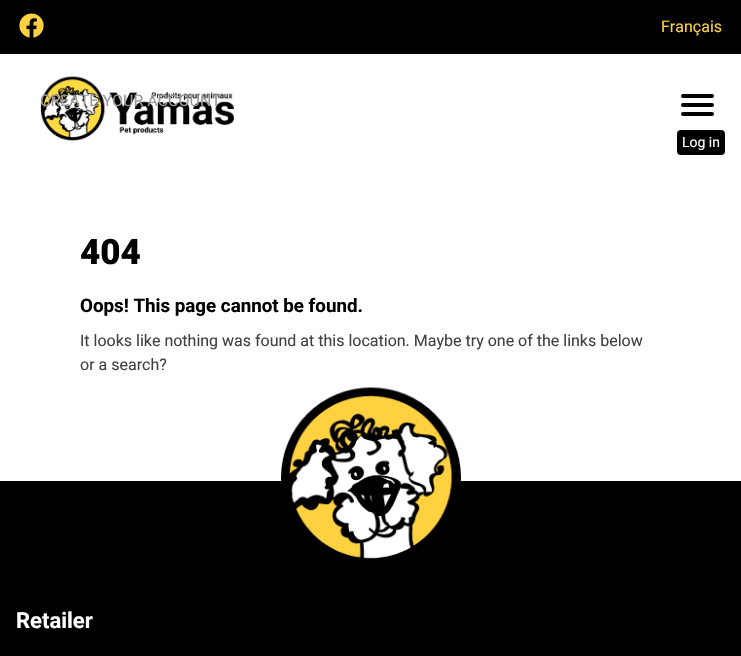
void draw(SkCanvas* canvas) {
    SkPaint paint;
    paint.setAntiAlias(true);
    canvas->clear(0xFFFFFFFF);
    canvas->drawImageRect(SkImages::DeferredFromEncodedData(SkData::MakeFromFileName("img2.png")), SkRect::MakeXYWH(40, 76, 194, 65), SkSamplingOptions());
    SkFont font1(fontMgr->matchFamilyStyle("Roboto", SkFontStyle::Normal()), 16);
    font1.setSubpixel(true);
    paint.setColor(0xFF9B9A95);
    canvas->drawString("CREATE YOUR ACCOUNT", 40, 106, font1, paint);
    paint.setColor(0xFF000000);
    canvas->drawRect(SkRect::MakeXYWH(0, 0, 741, 54), paint);
    canvas->drawImageRect(SkImages::DeferredFromEncodedData(SkData::MakeFromFileName("img1.png")), SkRect::MakeXYWH(19, 13, 25, 25), SkSamplingOptions());
    paint.setColor(0xFFFED141);
    canvas->drawString("Français", 661, 32, font1, paint);
    paint.setColor(0xFF000000);
    canvas->drawRoundRect(SkRect::MakeXYWH(681, 94, 33, 4), 2, 2, paint);
    canvas->drawRoundRect(SkRect::MakeXYWH(681, 103, 33, 4), 2, 2, paint);
    canvas->drawRoundRect(SkRect::MakeXYWH(681, 112, 33, 4), 2, 2, paint);
    canvas->drawRoundRect(SkRect::MakeXYWH(677, 130, 48, 25), 4, 4, paint);
    SkFont font2(fontMgr->matchFamilyStyle("Roboto", SkFontStyle::Normal()), 14);
    font2.setSubpixel(true);
    paint.setColor(0xFFFFFFFF);
    canvas->drawString("Log in", 682, 147, font2, paint);
    SkFont font3(fontMgr->matchFamilyStyle("Roboto", SkFontStyle(900, SkFontStyle::kNormal_Width, SkFontStyle::kUpright_Slant)), 35);
    font3.setSubpixel(true);
    paint.setColor(0xFF000000);
    canvas->drawString("404", 80, 264, font3, paint);
    SkFont font4(fontMgr->matchFamilyStyle("Roboto", SkFontStyle::Bold()), 18.75f);
    font4.setSubpixel(true);
    canvas->drawString("Oops! This page cannot be found.", 80, 312, font4, paint);
    paint.setColor(0xFF404040);
    canvas->drawString("It looks like nothing was found at this location. Maybe try one of the links below", 80, 346, font1, paint);
    canvas->drawString("or a search?", 80, 370, font1, paint);
    paint.setColor(0xFF000000);
    canvas->drawRect(SkRect::MakeXYWH(0, 481, 741, 175), paint);
    canvas->drawImageRect(SkImages::DeferredFromEncodedData(SkData::MakeFromFileName("img3.png")), SkRect::MakeXYWH(281, 387, 180, 172), SkSamplingOptions());
    SkFont font5(fontMgr->matchFamilyStyle("Roboto", SkFontStyle::Bold()), 22);
    font5.setSubpixel(true);
    paint.setColor(0xFFFFFFFF);
    canvas->drawString("Retailer", 16, 628, font5, paint);
}
